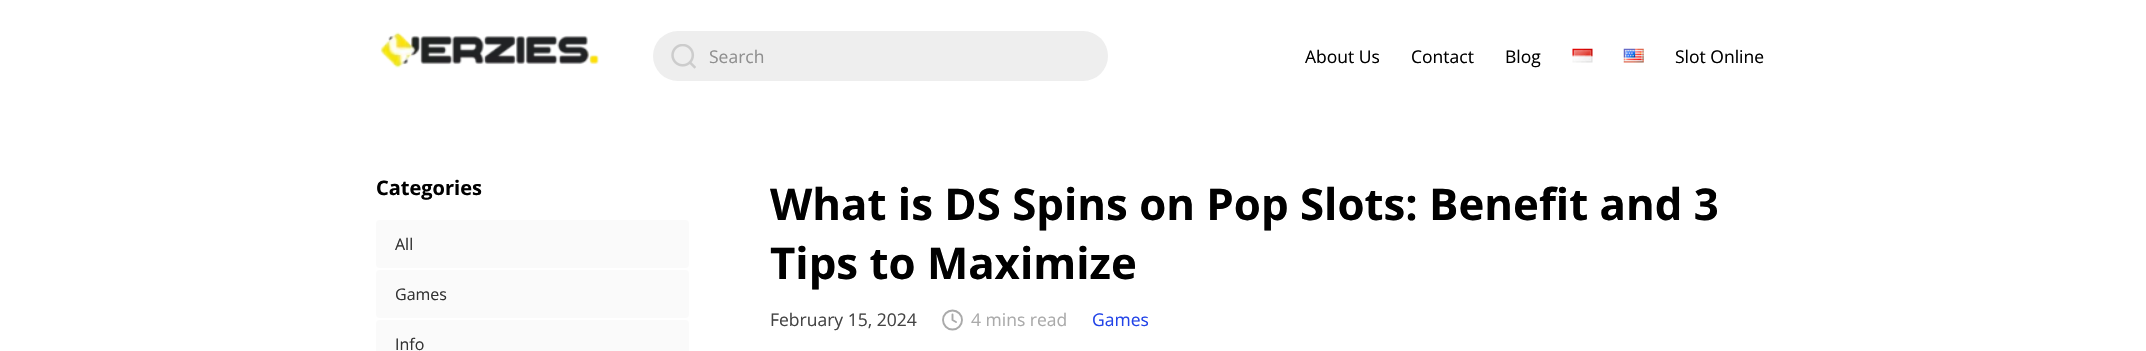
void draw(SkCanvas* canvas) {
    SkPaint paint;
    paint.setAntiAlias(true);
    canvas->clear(0xFFFFFFFF);
    canvas->drawImageRect(SkImages::DeferredFromEncodedData(SkData::MakeFromFileName("img1.png")), SkRect::MakeXYWH(380, 32, 219, 36), SkSamplingOptions());
    paint.setColor(0xFFEEEEEE);
    canvas->drawRoundRect(SkRect::MakeXYWH(653, 31, 455, 50), 25, 25, paint);
    canvas->drawImageRect(SkImages::DeferredFromEncodedData(SkData::MakeFromFileName("img2.png")), SkRect::MakeXYWH(671, 44, 25, 25), SkSamplingOptions());
    SkFont font1(fontMgr->matchFamilyStyle("Open Sans", SkFontStyle::Normal()), 17.5f);
    font1.setSubpixel(true);
    paint.setColor(0xFF8F8F8F);
    canvas->drawString("Search", 709, 63, font1, paint);
    paint.setColor(0xFF000000);
    canvas->drawString("About Us", 1305, 63, font1, paint);
    canvas->drawString("Contact", 1411, 63, font1, paint);
    canvas->drawString("Blog", 1505, 63, font1, paint);
    canvas->drawImageRect(SkImages::DeferredFromEncodedData(SkData::MakeFromFileName("img3.png")), SkRect::MakeXYWH(1572, 48, 21, 15), SkSamplingOptions());
    canvas->drawImageRect(SkImages::DeferredFromEncodedData(SkData::MakeFromFileName("img4.png")), SkRect::MakeXYWH(1623, 48, 21, 15), SkSamplingOptions());
    canvas->drawString("Slot Online", 1675, 63, font1, paint);
    SkFont font2(fontMgr->matchFamilyStyle("Open Sans", SkFontStyle::Bold()), 20);
    font2.setSubpixel(true);
    canvas->drawString("Categories", 376, 195, font2, paint);
    paint.setColor(0xFFFAFAFA);
    canvas->drawRoundRect(SkRect::MakeXYWH(376, 220, 313, 48), 4, 4, paint);
    SkFont font3(fontMgr->matchFamilyStyle("Open Sans", SkFontStyle::Normal()), 16);
    font3.setSubpixel(true);
    paint.setColor(0xFF333333);
    canvas->drawString("All", 395, 250, font3, paint);
    paint.setColor(0xFFFAFAFA);
    canvas->drawRoundRect(SkRect::MakeXYWH(376, 270, 313, 48), 4, 4, paint);
    paint.setColor(0xFF333333);
    canvas->drawString("Games", 395, 300, font3, paint);
    paint.setColor(0xFFFAFAFA);
    canvas->drawRoundRect(SkRect::MakeXYWH(376, 320, 313, 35), 4, 4, paint);
    paint.setColor(0xFF333333);
    canvas->drawString("Info", 395, 350, font3, paint);
    SkFont font4(fontMgr->matchFamilyStyle("Open Sans", SkFontStyle::Bold()), 43.75f);
    font4.setSubpixel(true);
    paint.setColor(0xFF000000);
    canvas->drawString("What is DS Spins on Pop Slots: Benefit and 3", 770, 220, font4, paint);
    canvas->drawString("Tips to Maximize", 770, 279, font4, paint);
    paint.setColor(0xFF444444);
    canvas->drawString("February 15, 2024", 770, 326, font1, paint);
    paint.setColor(0xFFAAAAAA);
    canvas->drawString("4 mins read", 971, 326, font1, paint);
    paint.setStyle(SkPaint::kStroke_Style);
    paint.setStrokeWidth(1.9f);
    canvas->drawCircle(952.5f, 320, 9.5f, paint);
    paint.setStrokeCap(SkPaint::kRound_Cap);
    paint.setStrokeJoin(SkPaint::kRound_Join);
    canvas->drawPath(SkPathBuilder().moveTo(952.5f, 314.5f).lineTo(952.5f, 320).lineTo(956, 322).detach(), paint);
    paint.setStyle(SkPaint::kFill_Style);
    paint.setColor(0xFF2143E8);
    canvas->drawString("Games", 1092, 326, font1, paint);
}
